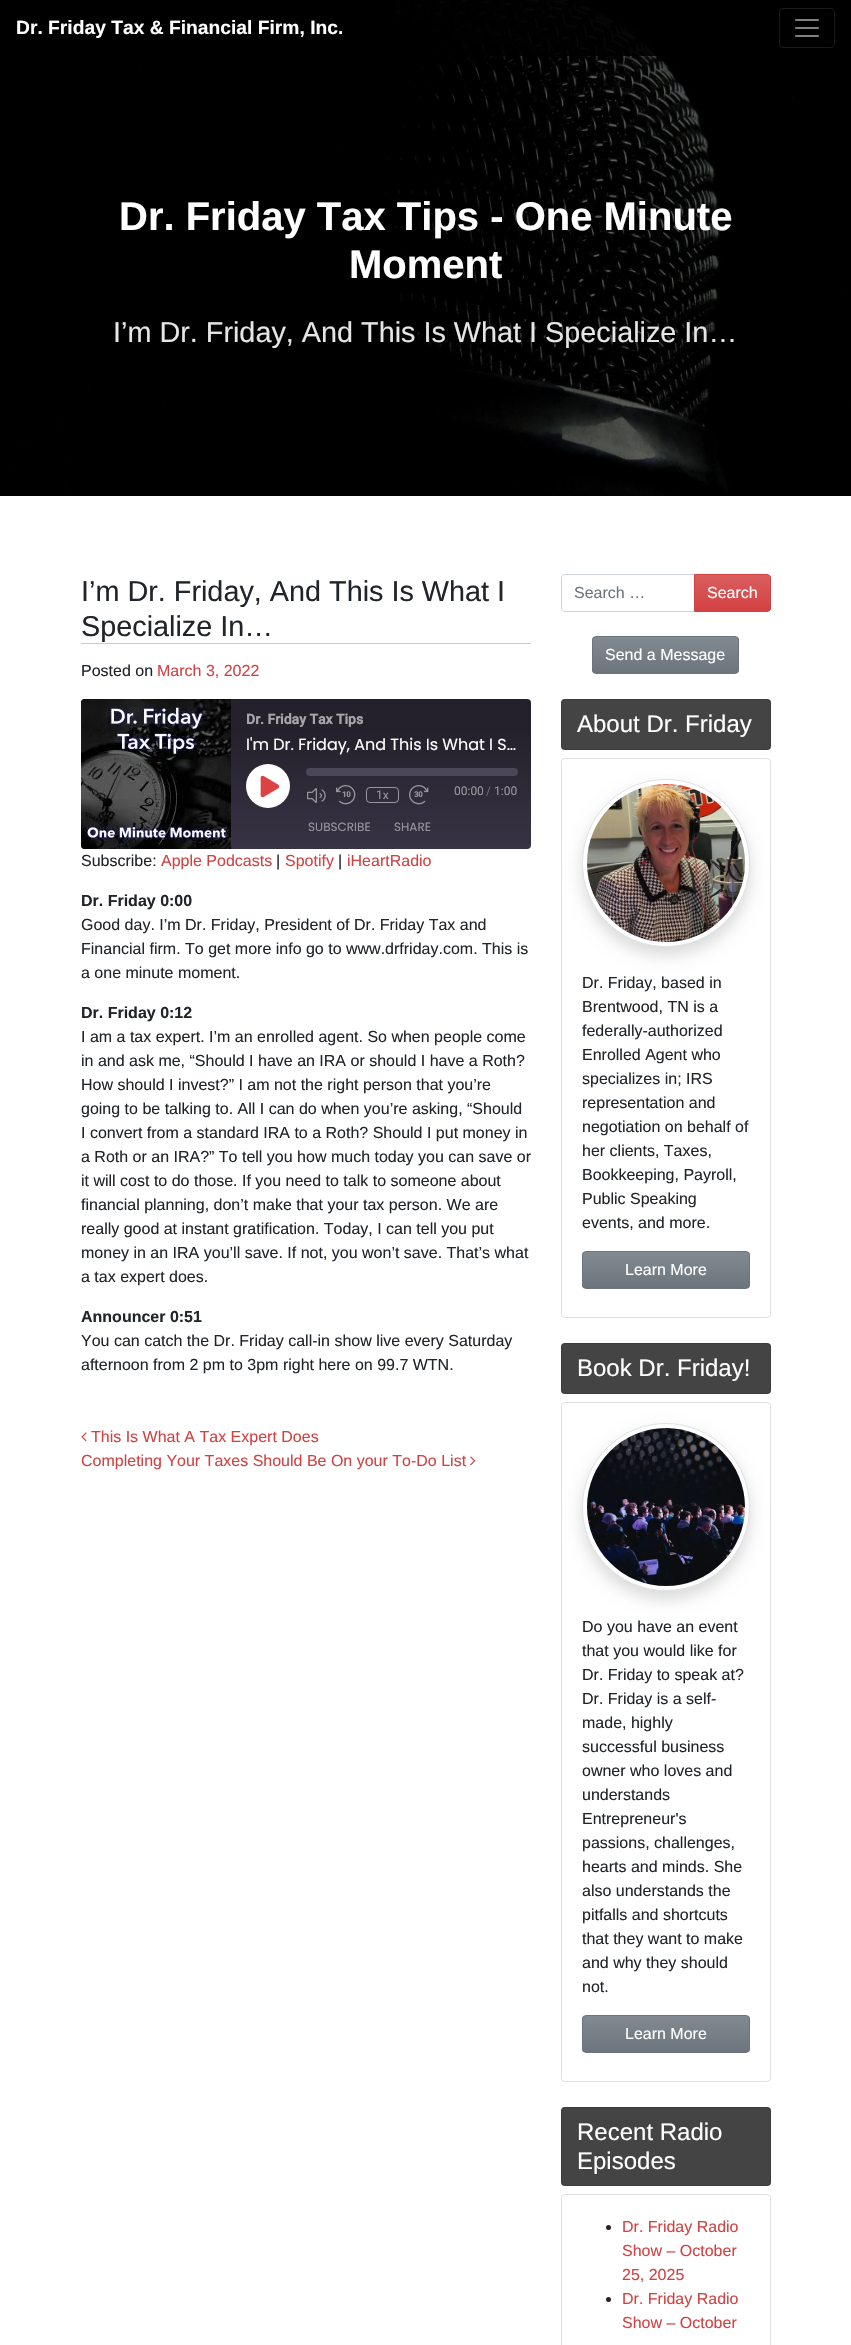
void draw(SkCanvas* canvas) {
    SkPaint paint;
    paint.setAntiAlias(true);
    canvas->clear(0xFFFFFFFF);
    canvas->drawImageRect(SkImages::DeferredFromEncodedData(SkData::MakeFromFileName("img2.png")), SkRect::MakeXYWH(0, 0, 851, 496), SkSamplingOptions());
    canvas->save();
    canvas->clipRect(SkRect::MakeXYWH(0, 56, 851, 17));
    paint.setColor(0x26000000);
    paint.setMaskFilter(SkMaskFilter::MakeBlur(kNormal_SkBlurStyle, 8));
    canvas->drawRect(SkRect::MakeXYWH(0, 8, 851, 56), paint);
    paint.setMaskFilter(nullptr);
    canvas->restore();
    paint.setColor(0xE6000000);
    canvas->drawRect(SkRect::MakeXYWH(52, 0, 605, 56), paint);
    SkFont font1(fontMgr->matchFamilyStyle("Liberation Sans", SkFontStyle::Bold()), 19.25f);
    font1.setSubpixel(true);
    paint.setColor(0xFFFFFFFF);
    canvas->drawString("Dr. Friday Tax & Financial Firm, Inc.", 16, 34, font1, paint);
    paint.setStyle(SkPaint::kStroke_Style);
    paint.setStrokeWidth(1);
    paint.setColor(0xFF1A1A1A);
    canvas->drawRoundRect(SkRect::MakeXYWH(779.5f, 8.5f, 55, 39), 3.5f, 3.5f, paint);
    canvas->drawImageRect(SkImages::DeferredFromEncodedData(SkData::MakeFromFileName("img1.png")), SkRect::MakeXYWH(795, 19, 24, 18), SkSamplingOptions());
    SkFont font2(fontMgr->matchFamilyStyle("Liberation Sans", SkFontStyle::Bold()), 40);
    font2.setSubpixel(true);
    paint.setStyle(SkPaint::kFill_Style);
    paint.setColor(0xFFFFFFFF);
    canvas->drawString("Dr. Friday Tax Tips - One Minute", 119, 230, font2, paint);
    canvas->drawString("Moment", 349, 278, font2, paint);
    SkFont font3(fontMgr->matchFamilyStyle("Liberation Sans", SkFontStyle::Normal()), 28.8f);
    font3.setSubpixel(true);
    paint.setColor(0xFFE6E6E6);
    canvas->drawString("I’m Dr. Friday, And This Is What I Specialize In…", 113, 342, font3, paint);
    paint.setColor(0xFFCCCCCC);
    canvas->drawRect(SkRect::MakeXYWH(81, 643, 450, 1), paint);
    paint.setColor(0xFF212529);
    canvas->drawString("I’m Dr. Friday, And This Is What I", 81, 601, font3, paint);
    canvas->drawString("Specialize In…", 81, 636, font3, paint);
    SkFont font4(fontMgr->matchFamilyStyle("Liberation Sans", SkFontStyle::Normal()), 16);
    font4.setSubpixel(true);
    canvas->drawString("Posted on", 81, 676, font4, paint);
    paint.setColor(0xFFD44142);
    canvas->drawString("March 3, 2022", 157, 676, font4, paint);
    {
        const SkColor colors[] = {0xFF383344, 0xFF24212C};
        const float stops[] = {0.01f, 0.78f};
        const SkPoint ends[] = {{306, 850}, {306, 698}};
        paint.setShader(SkGradientShader::MakeLinear(ends, colors, stops, 2, SkTileMode::kClamp));
        paint.setAlpha(255);
    }
    canvas->drawRoundRect(SkRect::MakeXYWH(81, 699, 450, 150), 4, 4, paint);
    canvas->drawImageRect(SkImages::DeferredFromEncodedData(SkData::MakeFromFileName("img3.png")), SkRect::MakeXYWH(81, 699, 150, 150), SkSamplingOptions());
    SkFont font5(fontMgr->matchFamilyStyle("Roboto", SkFontStyle::Bold()), 14);
    font5.setSubpixel(true);
    paint.setShader(nullptr);
    paint.setColor(0xFFA7A6AB);
    canvas->drawString("Dr. Friday Tax Tips", 246, 724, font5, paint);
    SkFont font6(fontMgr->matchFamilyStyle("Poppins", SkFontStyle::Normal()), 16);
    font6.setSubpixel(true);
    paint.setColor(0xFFFFFFFF);
    canvas->drawString("I'm Dr. Friday, And This Is What I S…", 246, 750, font6, paint);
    canvas->drawCircle(268, 786, 22, paint);
    canvas->drawImageRect(SkImages::DeferredFromEncodedData(SkData::MakeFromFileName("img4.png")), SkRect::MakeXYWH(260, 775, 20, 23), SkSamplingOptions());
    paint.setColor(0xFF4C4659);
    canvas->drawRoundRect(SkRect::MakeXYWH(306, 768, 212, 8), 4, 4, paint);
    canvas->drawImageRect(SkImages::DeferredFromEncodedData(SkData::MakeFromFileName("img5.png")), SkRect::MakeXYWH(307, 788, 19, 15), SkSamplingOptions());
    canvas->drawImageRect(SkImages::DeferredFromEncodedData(SkData::MakeFromFileName("img6.png")), SkRect::MakeXYWH(336, 785, 20, 20), SkSamplingOptions());
    paint.setStyle(SkPaint::kStroke_Style);
    paint.setColor(0x80FFFFFF);
    canvas->drawRoundRect(SkRect::MakeXYWH(366.5f, 787.5f, 32, 15), 3.5f, 3.5f, paint);
    SkFont font7(fontMgr->matchFamilyStyle("Roboto", SkFontStyle::Normal()), 12);
    font7.setSubpixel(true);
    paint.setStyle(SkPaint::kFill_Style);
    paint.setColor(0xFF97959C);
    canvas->drawString("1x", 376, 799, font7, paint);
    canvas->drawImageRect(SkImages::DeferredFromEncodedData(SkData::MakeFromFileName("img7.png")), SkRect::MakeXYWH(409, 785, 20, 20), SkSamplingOptions());
    canvas->drawString("00:00", 454, 795, font7, paint);
    paint.setColor(0xFF6D6A74);
    canvas->drawString("/", 486, 795, font7, paint);
    paint.setColor(0xFF97959C);
    canvas->drawString("1:00", 494, 795, font7, paint);
    SkFont font8(fontMgr->matchFamilyStyle("Poppins", SkFontStyle::Normal()), 12);
    font8.setSubpixel(true);
    canvas->drawString("SUBSCRIBE", 308, 831, font8, paint);
    canvas->drawString("SHARE", 394, 831, font8, paint);
    paint.setColor(0xFF212529);
    canvas->drawString("Subscribe:", 81, 866, font4, paint);
    paint.setColor(0xFFD44142);
    canvas->drawString("Apple Podcasts", 161, 866, font4, paint);
    paint.setColor(0xFF212529);
    canvas->drawString("|", 276, 866, font4, paint);
    paint.setColor(0xFFD44142);
    canvas->drawString("Spotify", 285, 866, font4, paint);
    paint.setColor(0xFF212529);
    canvas->drawString("|", 338, 866, font4, paint);
    paint.setColor(0xFFD44142);
    canvas->drawString("iHeartRadio", 347, 866, font4, paint);
    SkFont font9(fontMgr->matchFamilyStyle("Liberation Sans", SkFontStyle::Bold()), 16);
    font9.setSubpixel(true);
    paint.setColor(0xFF212529);
    canvas->drawString("Dr. Friday 0:00", 81, 906, font9, paint);
    canvas->drawString("Good day. I’m Dr. Friday, President of Dr. Friday Tax and", 81, 930, font4, paint);
    canvas->drawString("Financial firm. To get more info go to www.drfriday.com. This is", 81, 954, font4, paint);
    canvas->drawString("a one minute moment.", 81, 978, font4, paint);
    canvas->drawString("Dr. Friday 0:12", 81, 1018, font9, paint);
    canvas->drawString("I am a tax expert. I’m an enrolled agent. So when people come", 81, 1042, font4, paint);
    canvas->drawString("in and ask me, “Should I have an IRA or should I have a Roth?", 81, 1066, font4, paint);
    canvas->drawString("How should I invest?” I am not the right person that you’re", 81, 1090, font4, paint);
    canvas->drawString("going to be talking to. All I can do when you’re asking, “Should", 81, 1114, font4, paint);
    canvas->drawString("I convert from a standard IRA to a Roth? Should I put money in", 81, 1138, font4, paint);
    canvas->drawString("a Roth or an IRA?” To tell you how much today you can save or", 81, 1162, font4, paint);
    canvas->drawString("it will cost to do those. If you need to talk to someone about", 81, 1186, font4, paint);
    canvas->drawString("financial planning, don’t make that your tax person. We are", 81, 1210, font4, paint);
    canvas->drawString("really good at instant gratification. Today, I can tell you put", 81, 1234, font4, paint);
    canvas->drawString("money in an IRA you’ll save. If not, you won’t save. That’s what", 81, 1258, font4, paint);
    canvas->drawString("a tax expert does.", 81, 1282, font4, paint);
    canvas->drawString("Announcer 0:51", 81, 1322, font9, paint);
    canvas->drawString("You can catch the Dr. Friday call-in show live every Saturday", 81, 1346, font4, paint);
    canvas->drawString("afternoon from 2 pm to 3pm right here on 99.7 WTN.", 81, 1370, font4, paint);
    canvas->drawImageRect(SkImages::DeferredFromEncodedData(SkData::MakeFromFileName("img8.png")), SkRect::MakeXYWH(81, 1432, 6, 10), SkSamplingOptions());
    paint.setColor(0xFFD44142);
    canvas->drawString("This Is What A Tax Expert Does", 91, 1442, font4, paint);
    canvas->drawString("Completing Your Taxes Should Be On your To-Do List", 81, 1466, font4, paint);
    canvas->drawImageRect(SkImages::DeferredFromEncodedData(SkData::MakeFromFileName("img9.png")), SkRect::MakeXYWH(470, 1456, 6, 10), SkSamplingOptions());
    paint.setStyle(SkPaint::kStroke_Style);
    paint.setColor(0xFFCED4DA);
    canvas->drawPath(SkPathBuilder().moveTo(565, 574.5f).lineTo(694.5f, 574.5f).lineTo(694.5f, 611.5f).lineTo(565, 611.5f).cubicTo(563, 611.5f, 561.5f, 610, 561.5f, 608).lineTo(561.5f, 578).cubicTo(561.5f, 576, 563, 574.5f, 565, 574.5f).close().detach(), paint);
    paint.setStyle(SkPaint::kFill_Style);
    paint.setColor(0xFF6C757D);
    canvas->drawString("Search …", 574, 598, font4, paint);
    canvas->save();
    canvas->clipPath(SkPathBuilder().moveTo(694, 574).lineTo(767, 574).cubicTo(769, 574, 771, 576, 771, 578).lineTo(771, 608).cubicTo(771, 610, 769, 612, 767, 612).lineTo(694, 612).close().detach(), true);
    {
        const SkColor colors[] = {0xFFDA5E5E, 0xFFD44142};
        const float stops[] = {0, 1};
        const SkPoint ends[] = {{733, 575}, {733, 611}};
        paint.setShader(SkGradientShader::MakeLinear(ends, colors, stops, 2, SkTileMode::kClamp));
        paint.setAlpha(255);
    }
    canvas->drawRect(SkRect::MakeXYWH(695, 575, 76, 36), paint);
    canvas->restore();
    paint.setStyle(SkPaint::kStroke_Style);
    paint.setShader(nullptr);
    paint.setColor(0xFFD44142);
    canvas->drawPath(SkPathBuilder().moveTo(694.5f, 574.5f).lineTo(767, 574.5f).cubicTo(769, 574.5f, 770.5f, 576, 770.5f, 578).lineTo(770.5f, 608).cubicTo(770.5f, 610, 769, 611.5f, 767, 611.5f).lineTo(694.5f, 611.5f).close().detach(), paint);
    paint.setStyle(SkPaint::kFill_Style);
    paint.setColor(0xFFFFFFFF);
    canvas->drawString("Search", 707, 598, font4, paint);
    canvas->save();
    canvas->clipPath(SkPathBuilder().moveTo(596, 636).lineTo(735, 636).cubicTo(737, 636, 739, 638, 739, 640).lineTo(739, 670).cubicTo(739, 672, 737, 674, 735, 674).lineTo(596, 674).cubicTo(594, 674, 592, 672, 592, 670).lineTo(592, 640).cubicTo(592, 638, 594, 636, 596, 636).close().detach(), true);
    {
        const SkColor colors[] = {0xFF828A91, 0xFF6C757D};
        const float stops[] = {0, 1};
        const SkPoint ends[] = {{666, 637}, {666, 673}};
        paint.setShader(SkGradientShader::MakeLinear(ends, colors, stops, 2, SkTileMode::kClamp));
        paint.setAlpha(255);
    }
    canvas->drawRect(SkRect::MakeXYWH(592, 637, 147, 36), paint);
    canvas->restore();
    paint.setStyle(SkPaint::kStroke_Style);
    paint.setShader(nullptr);
    paint.setColor(0xFF6C757D);
    canvas->drawRoundRect(SkRect::MakeXYWH(592.5f, 636.5f, 146, 37), 3.5f, 3.5f, paint);
    paint.setStyle(SkPaint::kFill_Style);
    paint.setColor(0xFFFFFFFF);
    canvas->drawString("Send a Message", 605, 660, font4, paint);
    paint.setColor(0xFF444444);
    canvas->drawRoundRect(SkRect::MakeXYWH(561, 699, 210, 51), 4, 4, paint);
    paint.setStyle(SkPaint::kStroke_Style);
    paint.setColor(0x1F000000);
    canvas->drawRoundRect(SkRect::MakeXYWH(561.5f, 699.5f, 209, 50), 3.5f, 3.5f, paint);
    SkFont font10(fontMgr->matchFamilyStyle("Liberation Sans", SkFontStyle::Normal()), 24);
    font10.setSubpixel(true);
    paint.setStyle(SkPaint::kFill_Style);
    paint.setColor(0xFFFFFFFF);
    canvas->drawString("About Dr. Friday", 577, 732, font10, paint);
    paint.setStyle(SkPaint::kStroke_Style);
    paint.setColor(0xFFDFDFDF);
    canvas->drawRoundRect(SkRect::MakeXYWH(561.5f, 758.5f, 209, 559), 3.5f, 3.5f, paint);
    paint.setStyle(SkPaint::kFill_Style);
    paint.setColor(0x26000000);
    paint.setMaskFilter(SkMaskFilter::MakeBlur(kNormal_SkBlurStyle, 8));
    canvas->drawRoundRect(SkRect::MakeXYWH(582, 787, 168, 168), 84, 84, paint);
    paint.setMaskFilter(nullptr);
    paint.setColor(0xFFFFFFFF);
    canvas->drawCircle(666, 863, 83.5f, paint);
    paint.setStyle(SkPaint::kStroke_Style);
    paint.setColor(0xFFDEE2E6);
    canvas->drawCircle(666, 863, 83.5f, paint);
    canvas->drawImageRect(SkImages::DeferredFromEncodedData(SkData::MakeFromFileName("img10.png")), SkRect::MakeXYWH(587, 784, 158, 158), SkSamplingOptions());
    paint.setStyle(SkPaint::kFill_Style);
    paint.setColor(0xFF212529);
    canvas->drawString("Dr. Friday, based in", 582, 988, font4, paint);
    canvas->drawString("Brentwood, TN is a", 582, 1012, font4, paint);
    canvas->drawString("federally-authorized", 582, 1036, font4, paint);
    canvas->drawString("Enrolled Agent who", 582, 1060, font4, paint);
    canvas->drawString("specializes in; IRS", 582, 1084, font4, paint);
    canvas->drawString("representation and", 582, 1108, font4, paint);
    canvas->drawString("negotiation on behalf of", 582, 1132, font4, paint);
    canvas->drawString("her clients, Taxes,", 582, 1156, font4, paint);
    canvas->drawString("Bookkeeping, Payroll,", 582, 1180, font4, paint);
    canvas->drawString("Public Speaking", 582, 1204, font4, paint);
    canvas->drawString("events, and more.", 582, 1228, font4, paint);
    canvas->save();
    canvas->clipPath(SkPathBuilder().moveTo(586, 1251).lineTo(746, 1251).cubicTo(748, 1251, 750, 1253, 750, 1255).lineTo(750, 1285).cubicTo(750, 1287, 748, 1289, 746, 1289).lineTo(586, 1289).cubicTo(584, 1289, 582, 1287, 582, 1285).lineTo(582, 1255).cubicTo(582, 1253, 584, 1251, 586, 1251).close().detach(), true);
    {
        const SkColor colors[] = {0xFF828A91, 0xFF6C757D};
        const float stops[] = {0, 1};
        const SkPoint ends[] = {{666, 1252}, {666, 1288}};
        paint.setShader(SkGradientShader::MakeLinear(ends, colors, stops, 2, SkTileMode::kClamp));
        paint.setAlpha(255);
    }
    canvas->drawRect(SkRect::MakeXYWH(582, 1252, 168, 36), paint);
    canvas->restore();
    paint.setStyle(SkPaint::kStroke_Style);
    paint.setShader(nullptr);
    paint.setColor(0xFF6C757D);
    canvas->drawRoundRect(SkRect::MakeXYWH(582.5f, 1251.5f, 167, 37), 3.5f, 3.5f, paint);
    paint.setStyle(SkPaint::kFill_Style);
    paint.setColor(0xFFFFFFFF);
    canvas->drawString("Learn More", 625, 1275, font4, paint);
    paint.setColor(0xFF444444);
    canvas->drawRoundRect(SkRect::MakeXYWH(561, 1343, 210, 51), 4, 4, paint);
    paint.setStyle(SkPaint::kStroke_Style);
    paint.setColor(0x1F000000);
    canvas->drawRoundRect(SkRect::MakeXYWH(561.5f, 1343.5f, 209, 50), 3.5f, 3.5f, paint);
    paint.setStyle(SkPaint::kFill_Style);
    paint.setColor(0xFFFFFFFF);
    canvas->drawString("Book Dr. Friday!", 577, 1376, font10, paint);
    paint.setStyle(SkPaint::kStroke_Style);
    paint.setColor(0xFFDFDFDF);
    canvas->drawRoundRect(SkRect::MakeXYWH(561.5f, 1402.5f, 209, 679), 3.5f, 3.5f, paint);
    paint.setStyle(SkPaint::kFill_Style);
    paint.setColor(0x26000000);
    paint.setMaskFilter(SkMaskFilter::MakeBlur(kNormal_SkBlurStyle, 8));
    canvas->drawRoundRect(SkRect::MakeXYWH(582, 1431, 168, 168), 84, 84, paint);
    paint.setMaskFilter(nullptr);
    paint.setColor(0xFFFFFFFF);
    canvas->drawCircle(666, 1507, 83.5f, paint);
    paint.setStyle(SkPaint::kStroke_Style);
    paint.setColor(0xFFDEE2E6);
    canvas->drawCircle(666, 1507, 83.5f, paint);
    canvas->drawImageRect(SkImages::DeferredFromEncodedData(SkData::MakeFromFileName("img11.png")), SkRect::MakeXYWH(587, 1428, 158, 158), SkSamplingOptions());
    paint.setStyle(SkPaint::kFill_Style);
    paint.setColor(0xFF212529);
    canvas->drawString("Do you have an event", 582, 1632, font4, paint);
    canvas->drawString("that you would like for", 582, 1656, font4, paint);
    canvas->drawString("Dr. Friday to speak at?", 582, 1680, font4, paint);
    canvas->drawString("Dr. Friday is a self-", 582, 1704, font4, paint);
    canvas->drawString("made, highly", 582, 1728, font4, paint);
    canvas->drawString("successful business", 582, 1752, font4, paint);
    canvas->drawString("owner who loves and", 582, 1776, font4, paint);
    canvas->drawString("understands", 582, 1800, font4, paint);
    canvas->drawString("Entrepreneur's", 582, 1824, font4, paint);
    canvas->drawString("passions, challenges,", 582, 1848, font4, paint);
    canvas->drawString("hearts and minds. She", 582, 1872, font4, paint);
    canvas->drawString("also understands the", 582, 1896, font4, paint);
    canvas->drawString("pitfalls and shortcuts", 582, 1920, font4, paint);
    canvas->drawString("that they want to make", 582, 1944, font4, paint);
    canvas->drawString("and why they should", 582, 1968, font4, paint);
    canvas->drawString("not.", 582, 1992, font4, paint);
    canvas->save();
    canvas->clipPath(SkPathBuilder().moveTo(586, 2015).lineTo(746, 2015).cubicTo(748, 2015, 750, 2017, 750, 2019).lineTo(750, 2049).cubicTo(750, 2051, 748, 2053, 746, 2053).lineTo(586, 2053).cubicTo(584, 2053, 582, 2051, 582, 2049).lineTo(582, 2019).cubicTo(582, 2017, 584, 2015, 586, 2015).close().detach(), true);
    {
        const SkColor colors[] = {0xFF828A91, 0xFF6C757D};
        const float stops[] = {0, 1};
        const SkPoint ends[] = {{666, 2016}, {666, 2052}};
        paint.setShader(SkGradientShader::MakeLinear(ends, colors, stops, 2, SkTileMode::kClamp));
        paint.setAlpha(255);
    }
    canvas->drawRect(SkRect::MakeXYWH(582, 2016, 168, 36), paint);
    canvas->restore();
    paint.setStyle(SkPaint::kStroke_Style);
    paint.setShader(nullptr);
    paint.setColor(0xFF6C757D);
    canvas->drawRoundRect(SkRect::MakeXYWH(582.5f, 2015.5f, 167, 37), 3.5f, 3.5f, paint);
    paint.setStyle(SkPaint::kFill_Style);
    paint.setColor(0xFFFFFFFF);
    canvas->drawString("Learn More", 625, 2039, font4, paint);
    paint.setColor(0xFF444444);
    canvas->drawRoundRect(SkRect::MakeXYWH(561, 2107, 210, 79), 4, 4, paint);
    paint.setStyle(SkPaint::kStroke_Style);
    paint.setColor(0x1F000000);
    canvas->drawRoundRect(SkRect::MakeXYWH(561.5f, 2107.5f, 209, 78), 3.5f, 3.5f, paint);
    paint.setStyle(SkPaint::kFill_Style);
    paint.setColor(0xFFFFFFFF);
    canvas->drawString("Recent Radio", 577, 2140, font10, paint);
    canvas->drawString("Episodes", 577, 2169, font10, paint);
    paint.setStyle(SkPaint::kStroke_Style);
    paint.setColor(0xFFDFDFDF);
    canvas->drawRoundRect(SkRect::MakeXYWH(561.5f, 2194.5f, 209, 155), 3.5f, 3.5f, paint);
    paint.setStyle(SkPaint::kFill_Style);
    paint.setColor(0xFF212529);
    canvas->drawCircle(608.5f, 2227.5f, 2.5f, paint);
    paint.setColor(0xFFD44142);
    canvas->drawString("Dr. Friday Radio", 622, 2232, font4, paint);
    canvas->drawString("Show – October", 622, 2256, font4, paint);
    canvas->drawString("25, 2025", 622, 2280, font4, paint);
    paint.setColor(0xFF212529);
    canvas->drawCircle(608.5f, 2299.5f, 2.5f, paint);
    paint.setColor(0xFFD44142);
    canvas->drawString("Dr. Friday Radio", 622, 2304, font4, paint);
    canvas->drawString("Show – October", 622, 2328, font4, paint);
}
